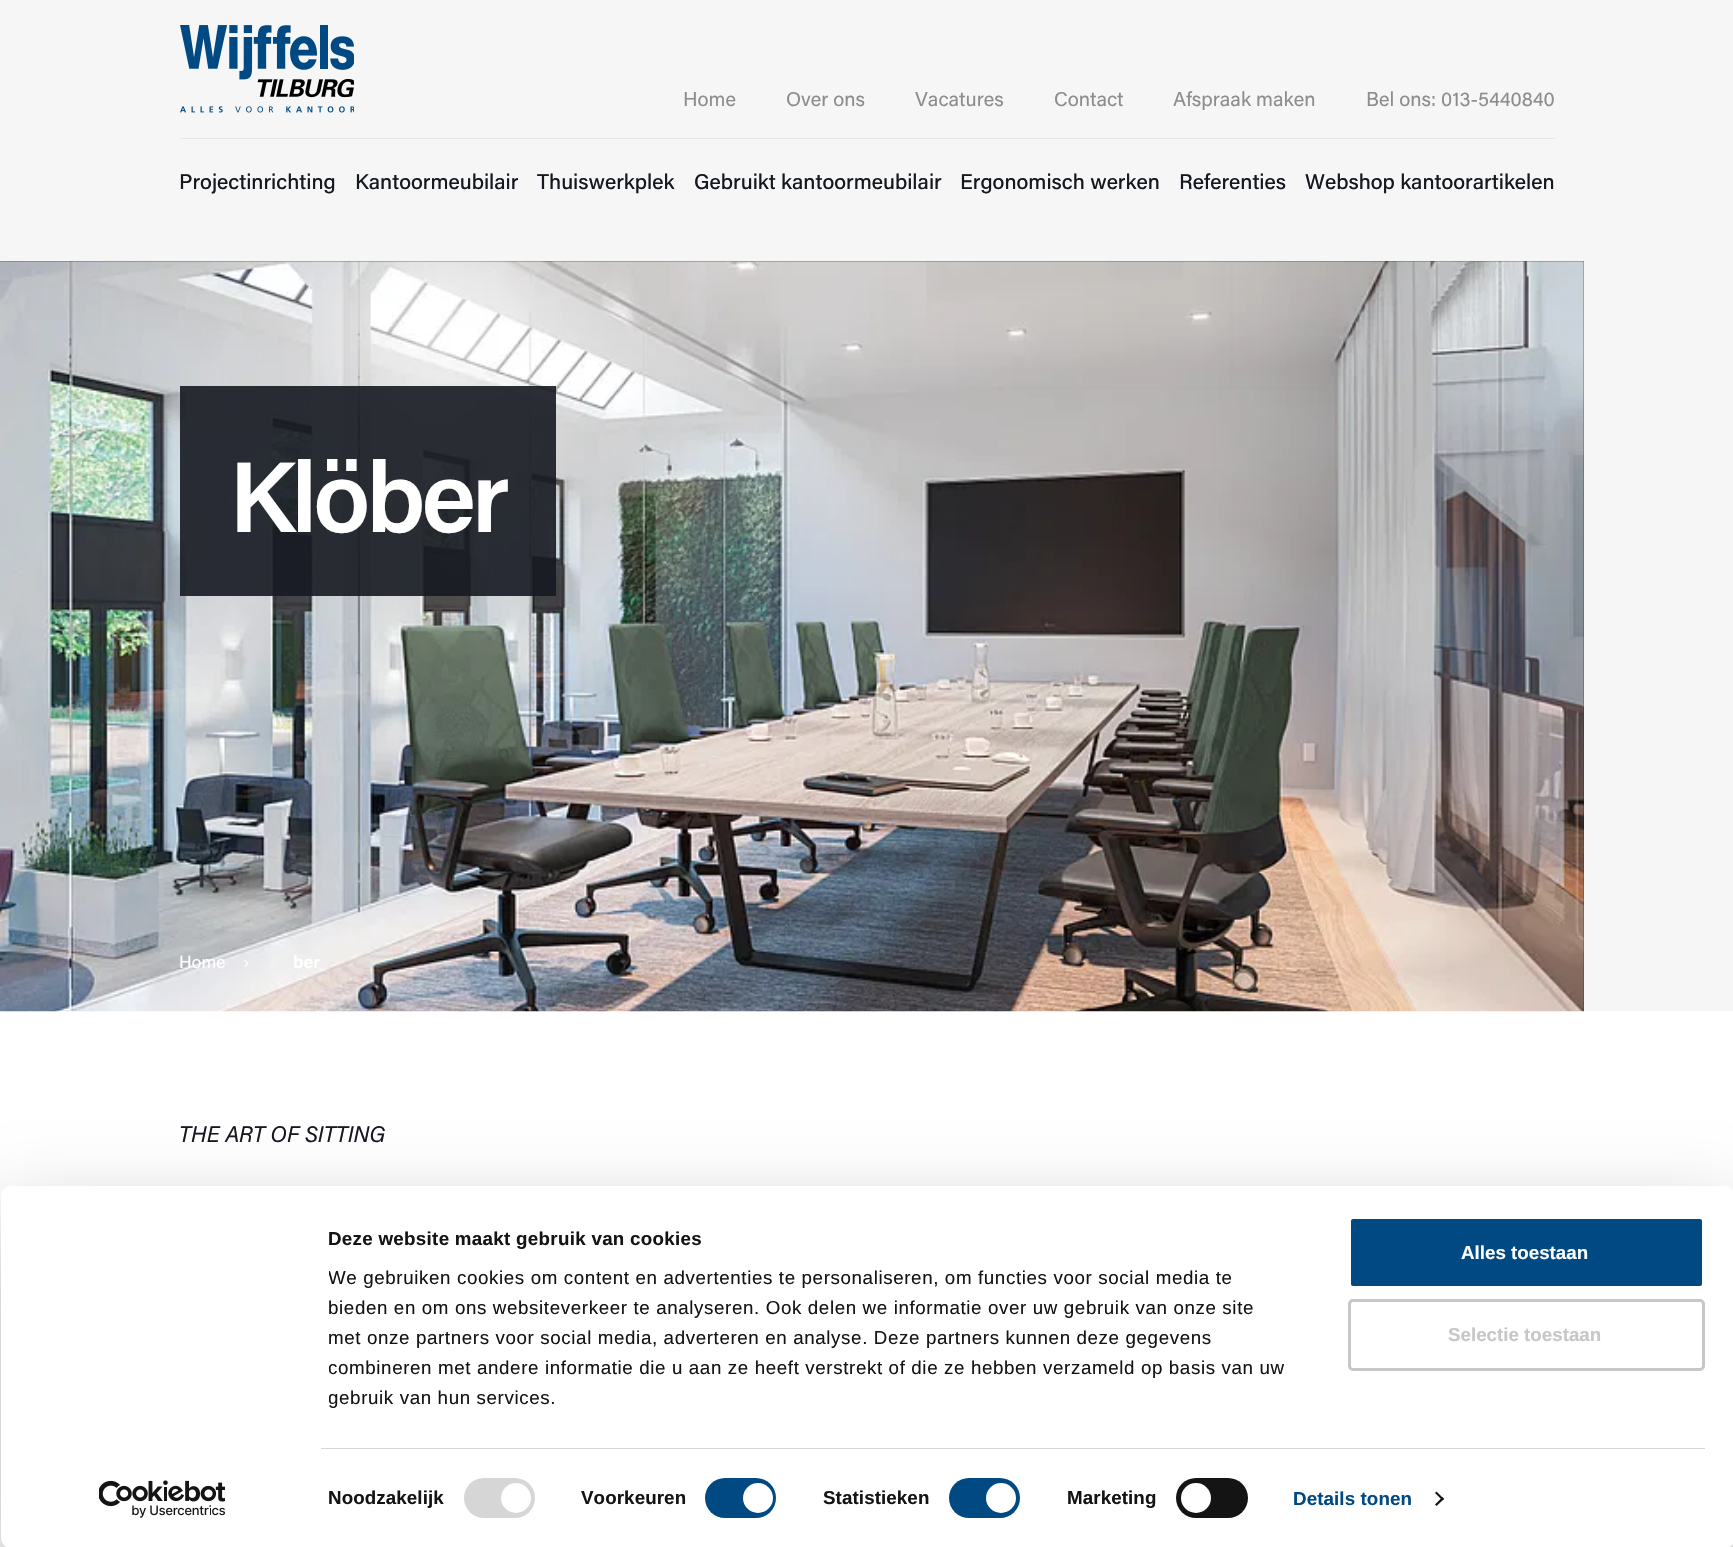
void draw(SkCanvas* canvas) {
    SkPaint paint;
    paint.setAntiAlias(true);
    auto spacedText = [&](const char* s, float x, float y, const SkFont& font, const SkPaint& ink, float letter, float word) {
        std::vector<SkGlyphID> glyphs(font.countText(s, strlen(s), SkTextEncoding::kUTF8));
        std::vector<float> xs(glyphs.size());
        font.textToGlyphs(s, strlen(s), SkTextEncoding::kUTF8, glyphs);
        font.getXPos(glyphs, xs, x);
        float extra = 0;
        for (size_t i = 0; i < glyphs.size(); i++) {
            xs[i] += extra;
            extra += letter + word * (glyphs[i] == font.unicharToGlyph(' '));
        }
        canvas->drawTextBlob(SkTextBlob::MakeFromPosHGlyphs(glyphs, xs, y, font), 0, 0, ink);
    };
    canvas->clear(0xFFFFFFFF);
    paint.setColor(0xFFF6F6F6);
    canvas->drawRect(SkRect::MakeXYWH(0, 0, 1733, 1011), paint);
    canvas->drawImageRect(SkImages::DeferredFromEncodedData(SkData::MakeFromFileName("img1.png")), SkRect::MakeXYWH(180, 25, 174, 88), SkSamplingOptions());
    SkFont font1(fontMgr->matchFamilyStyle("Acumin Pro", SkFontStyle::Normal()), 20);
    font1.setSubpixel(true);
    paint.setColor(0xFF8D8D8D);
    canvas->drawString("Home", 683, 106, font1, paint);
    canvas->drawString("Over ons", 786, 106, font1, paint);
    canvas->drawString("Vacatures", 915, 106, font1, paint);
    canvas->drawString("Contact", 1054, 106, font1, paint);
    canvas->drawString("Afspraak maken", 1173, 106, font1, paint);
    canvas->drawString("Bel ons: 013-5440840", 1366, 106, font1, paint);
    paint.setColor(0xFFE7E7E8);
    canvas->drawRect(SkRect::MakeXYWH(180, 138, 1375, 1), paint);
    SkFont font2(fontMgr->matchFamilyStyle("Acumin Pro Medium", SkFontStyle(500, SkFontStyle::kNormal_Width, SkFontStyle::kUpright_Slant)), 21.25f);
    font2.setSubpixel(true);
    paint.setColor(0xFF151820);
    canvas->drawString("Projectinrichting", 179, 189, font2, paint);
    canvas->drawString("Kantoormeubilair", 355, 189, font2, paint);
    canvas->drawString("Thuiswerkplek", 537, 189, font2, paint);
    canvas->drawString("Gebruikt kantoormeubilair", 694, 189, font2, paint);
    canvas->drawString("Ergonomisch werken", 960, 189, font2, paint);
    canvas->drawString("Referenties", 1179, 189, font2, paint);
    canvas->drawString("Webshop kantoorartikelen", 1305, 189, font2, paint);
    canvas->drawRect(SkRect::MakeXYWH(0, 261, 1584, 750), paint);
    canvas->drawImageRect(SkImages::DeferredFromEncodedData(SkData::MakeFromFileName("img2.png")), SkRect::MakeXYWH(0, 261, 1584, 751), SkSamplingOptions());
    paint.setColor(0xE6151820);
    canvas->drawRect(SkRect::MakeXYWH(180, 386, 376, 210), paint);
    SkFont font3(fontMgr->matchFamilyStyle("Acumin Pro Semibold", SkFontStyle(600, SkFontStyle::kNormal_Width, SkFontStyle::kUpright_Slant)), 100);
    font3.setSubpixel(true);
    paint.setColor(0xFFFFFFFF);
    spacedText("Klöber", 229, 532, font3, paint, -4, 0);
    SkFont font4(fontMgr->matchFamilyStyle("Acumin Pro", SkFontStyle::Normal()), 17.5f);
    font4.setSubpixel(true);
    canvas->drawString("Home", 179, 968, font4, paint);
    canvas->drawString("›", 243, 968, font4, paint);
    SkFont font5(fontMgr->matchFamilyStyle("Acumin Pro", SkFontStyle::Bold()), 17.5f);
    font5.setSubpixel(true);
    canvas->drawString("ber", 293, 968, font5, paint);
    SkFont font6(fontMgr->matchFamilyStyle("Acumin Pro", SkFontStyle::Italic()), 22.5f);
    font6.setSubpixel(true);
    paint.setColor(0xFF151820);
    canvas->drawString("THE ART OF SITTING", 179, 1142, font6, paint);
    paint.setColor(0x4D000000);
    paint.setMaskFilter(SkMaskFilter::MakeBlur(kNormal_SkBlurStyle, 44));
    canvas->drawRoundRect(SkRect::MakeXYWH(1, 1224, 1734, 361), 10, 10, paint);
    paint.setMaskFilter(nullptr);
    paint.setColor(0xFFFFFFFF);
    canvas->drawRoundRect(SkRect::MakeXYWH(1, 1186, 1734, 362), 10, 10, paint);
    canvas->save();
    canvas->clipRect(SkRect::MakeXYWH(329, 1224, 982, 189));
    SkFont font7(fontMgr->matchFamilyStyle("Liberation Sans", SkFontStyle::Bold()), 18.75f);
    font7.setSubpixel(true);
    paint.setColor(0xFF141414);
    spacedText("Deze website maakt gebruik van cookies", 328, 1245, font7, paint, 0.3f, 0);
    SkFont font8(fontMgr->matchFamilyStyle("Liberation Sans", SkFontStyle::Normal()), 18.75f);
    font8.setSubpixel(true);
    spacedText("We gebruiken cookies om content en advertenties te personaliseren, om functies voor social media te", 328, 1284, font8, paint, 0.62f, 0);
    spacedText("bieden en om ons websiteverkeer te analyseren. Ook delen we informatie over uw gebruik van onze site", 328, 1314, font8, paint, 0.62f, 0);
    canvas->restore();
    spacedText("met onze partners voor social media, adverteren en analyse. Deze partners kunnen deze gegevens", 328, 1344, font8, paint, 0.62f, 0);
    canvas->save();
    canvas->clipRect(SkRect::MakeXYWH(329, 1224, 982, 189));
    spacedText("combineren met andere informatie die u aan ze heeft verstrekt of die ze hebben verzameld op basis van uw", 328, 1374, font8, paint, 0.62f, 0);
    spacedText("gebruik van hun services.", 328, 1404, font8, paint, 0.62f, 0);
    canvas->restore();
    paint.setColor(0xFFD6D6D6);
    canvas->drawRect(SkRect::MakeXYWH(321, 1448, 1384, 1), paint);
    paint.setColor(0xFF141414);
    spacedText("Noodzakelijk", 328, 1504, font7, paint, 0.1f, 0);
    paint.setColor(0xFFD6D6D6);
    canvas->drawRoundRect(SkRect::MakeXYWH(464, 1478, 71, 40), 20, 20, paint);
    paint.setColor(0xFFFFFFFF);
    canvas->drawCircle(516, 1498, 15, paint);
    paint.setColor(0xFF141414);
    spacedText("Voorkeuren", 581, 1504, font7, paint, 0.1f, 0);
    paint.setColor(0xFF004982);
    canvas->drawRoundRect(SkRect::MakeXYWH(705, 1478, 71, 40), 20, 20, paint);
    paint.setColor(0xFFFFFFFF);
    canvas->drawCircle(758, 1498, 15, paint);
    paint.setColor(0xFF141414);
    spacedText("Statistieken", 823, 1504, font7, paint, 0.1f, 0);
    paint.setColor(0xFF004982);
    canvas->drawRoundRect(SkRect::MakeXYWH(949, 1478, 71, 40), 20, 20, paint);
    paint.setColor(0xFFFFFFFF);
    canvas->drawCircle(1001, 1498, 15, paint);
    paint.setColor(0xFF141414);
    spacedText("Marketing", 1067, 1504, font7, paint, 0.1f, 0);
    canvas->drawRoundRect(SkRect::MakeXYWH(1176, 1478, 72, 40), 20, 20, paint);
    paint.setColor(0xFFFFFFFF);
    canvas->drawCircle(1196, 1498, 15, paint);
    paint.setColor(0xFF004982);
    spacedText("Details tonen", 1293, 1505, font7, paint, 0.1f, 0);
    paint.setColor(0xFF141414);
    canvas->drawPath(SkPathBuilder().moveTo(1436.5f, 1491.5f).lineTo(1444, 1499).lineTo(1442.5f, 1500.5f).lineTo(1435, 1493).close().detach(), paint);
    canvas->drawPath(SkPathBuilder().moveTo(1442.5f, 1497).lineTo(1444, 1499).lineTo(1436.5f, 1506).lineTo(1435, 1504.5f).close().detach(), paint);
    paint.setColor(0xFF004982);
    canvas->drawRoundRect(SkRect::MakeXYWH(1349.5f, 1217.5f, 354, 70), 3.5f, 3.5f, paint);
    paint.setStyle(SkPaint::kStroke_Style);
    paint.setStrokeWidth(3);
    paint.setColor(0xFFFFFFFF);
    canvas->drawRoundRect(SkRect::MakeXYWH(1349.5f, 1217.5f, 354, 70), 3.5f, 3.5f, paint);
    paint.setStyle(SkPaint::kFill_Style);
    canvas->drawString("Alles toestaan", 1461, 1259, font7, paint);
    paint.setStyle(SkPaint::kStroke_Style);
    paint.setColor(0xFFC7C7C7);
    canvas->drawRoundRect(SkRect::MakeXYWH(1349.5f, 1300.5f, 354, 69), 3.5f, 3.5f, paint);
    paint.setStyle(SkPaint::kFill_Style);
    paint.setColor(0xFFC8C6C6);
    canvas->drawString("Selectie toestaan", 1448, 1341, font7, paint);
    canvas->drawImageRect(SkImages::DeferredFromEncodedData(SkData::MakeFromFileName("img3.png")), SkRect::MakeXYWH(99, 1480, 126, 38), SkSamplingOptions());
}
